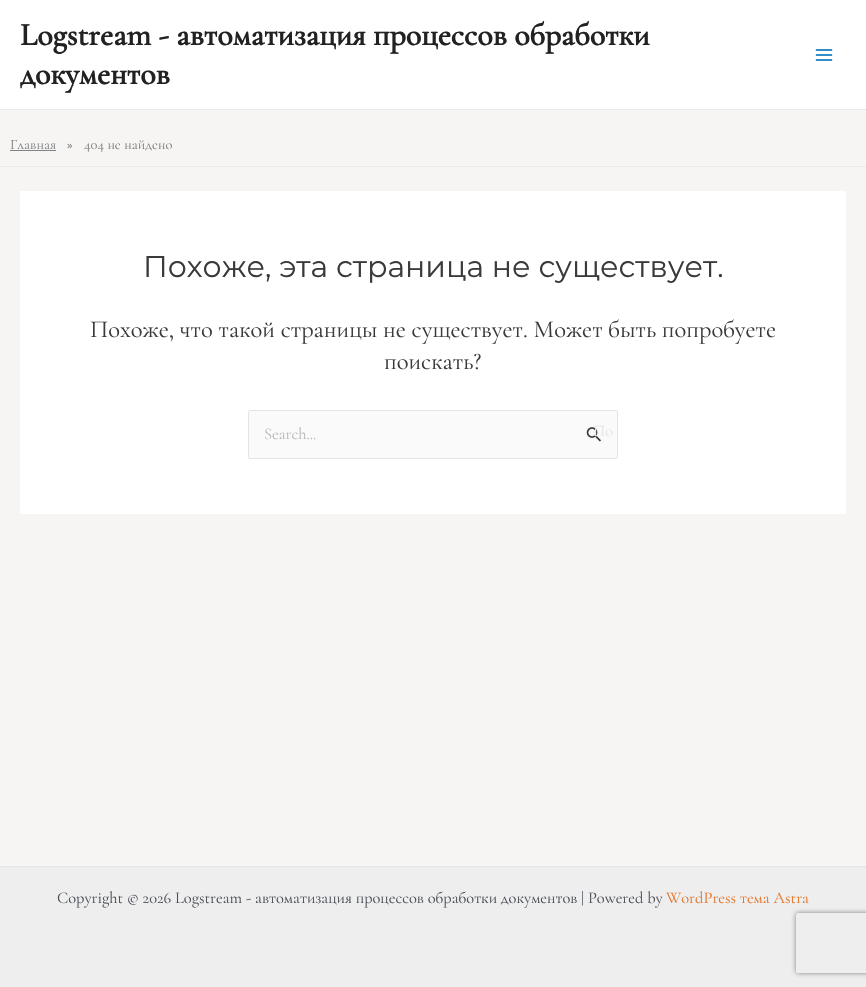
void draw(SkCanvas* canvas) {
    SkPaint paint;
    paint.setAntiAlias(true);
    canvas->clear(0xFFF6F5F3);
    paint.setColor(0xFFFFFFFF);
    canvas->drawRect(SkRect::MakeXYWH(0, 0, 866, 109), paint);
    paint.setColor(0xFFEAEAEA);
    canvas->drawRect(SkRect::MakeXYWH(0, 109, 866, 1), paint);
    SkFont font1(fontMgr->matchFamilyStyle("Cormorant Garamond", SkFontStyle::Bold()), 31.9f);
    font1.setSubpixel(true);
    paint.setColor(0xFF222222);
    canvas->drawString("Logstream - автоматизация процессов обработки", 20, 45, font1, paint);
    canvas->drawString("документов", 20, 84, font1, paint);
    canvas->drawImageRect(SkImages::DeferredFromEncodedData(SkData::MakeFromFileName("img1.png")), SkRect::MakeXYWH(815, 49, 18, 12), SkSamplingOptions());
    paint.setColor(0xFFEAEAEA);
    canvas->drawRect(SkRect::MakeXYWH(0, 166, 866, 1), paint);
    SkFont font2(fontMgr->matchFamilyStyle("Cormorant Garamond", SkFontStyle::Normal()), 14.5f);
    font2.setSubpixel(true);
    paint.setColor(0xFF808285);
    canvas->drawString("Главная", 10, 149, font2, paint);
    canvas->drawRect(SkRect::MakeXYWH(10, 150, 46, 1), paint);
    SkFont font3(fontMgr->matchFamilyStyle("Open Sans", SkFontStyle::Normal()), 11);
    font3.setSubpixel(true);
    canvas->drawString("»", 67, 149, font3, paint);
    canvas->drawString("404 не найдено", 84, 149, font2, paint);
    paint.setColor(0xFFFFFFFF);
    canvas->drawRect(SkRect::MakeXYWH(20, 191, 826, 323), paint);
    SkFont font4(fontMgr->matchFamilyStyle("Montserrat", SkFontStyle::Normal()), 30);
    font4.setSubpixel(true);
    paint.setColor(0xFF3A3A3A);
    canvas->drawString("Похоже, эта страница не существует.", 143, 277, font4, paint);
    SkFont font5(fontMgr->matchFamilyStyle("Cormorant Garamond", SkFontStyle::Normal()), 24.6f);
    font5.setSubpixel(true);
    canvas->drawString("Похоже, что такой страницы не существует. Может быть попробуете", 90, 337, font5, paint);
    canvas->drawString("поискать?", 384, 369, font5, paint);
    paint.setColor(0xFFFAFAFA);
    canvas->drawRoundRect(SkRect::MakeXYWH(248.5f, 410.5f, 369, 48), 1.5f, 1.5f, paint);
    paint.setStyle(SkPaint::kStroke_Style);
    paint.setStrokeWidth(1);
    paint.setColor(0xFFE5E5E5);
    canvas->drawRoundRect(SkRect::MakeXYWH(248.5f, 410.5f, 369, 48), 1.5f, 1.5f, paint);
    SkFont font6(fontMgr->matchFamilyStyle("Cormorant Garamond", SkFontStyle::Normal()), 16.4f);
    font6.setSubpixel(true);
    paint.setStyle(SkPaint::kFill_Style);
    paint.setColor(0xFFB8B8B8);
    canvas->drawString("Search...", 264, 439, font6, paint);
    canvas->drawImageRect(SkImages::DeferredFromEncodedData(SkData::MakeFromFileName("img2.png")), SkRect::MakeXYWH(586, 427, 15, 15), SkSamplingOptions());
    paint.setColor(0xFFE6E6E6);
    canvas->drawString("По", 593, 436, font6, paint);
    paint.setColor(0xFFEEEEEE);
    canvas->drawRect(SkRect::MakeXYWH(0, 867, 866, 120), paint);
    paint.setColor(0xFFE5E5E5);
    canvas->drawRect(SkRect::MakeXYWH(0, 866, 866, 1), paint);
    paint.setColor(0xFF4B4F58);
    canvas->drawString("Copyright © 2026 Logstream - автоматизация процессов обработки документов | Powered by", 57, 903, font6, paint);
    paint.setColor(0xFFE2752B);
    canvas->drawString("WordPress тема Astra", 666, 903, font6, paint);
    canvas->save();
    canvas->clipPath(SkPathBuilder(SkPathFillType::kEvenOdd).moveTo(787, 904).lineTo(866, 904).lineTo(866, 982).lineTo(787, 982).close().moveTo(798, 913).lineTo(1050, 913).cubicTo(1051, 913, 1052, 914, 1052, 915).lineTo(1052, 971).cubicTo(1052, 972, 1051, 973, 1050, 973).lineTo(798, 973).cubicTo(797, 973, 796, 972, 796, 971).lineTo(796, 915).cubicTo(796, 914, 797, 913, 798, 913).close().detach(), true);
    paint.setColor(0xFF808080);
    paint.setMaskFilter(SkMaskFilter::MakeBlur(kNormal_SkBlurStyle, 2.5f));
    canvas->drawRoundRect(SkRect::MakeXYWH(796, 913, 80, 60), 2, 2, paint);
    paint.setMaskFilter(nullptr);
    canvas->restore();
}
